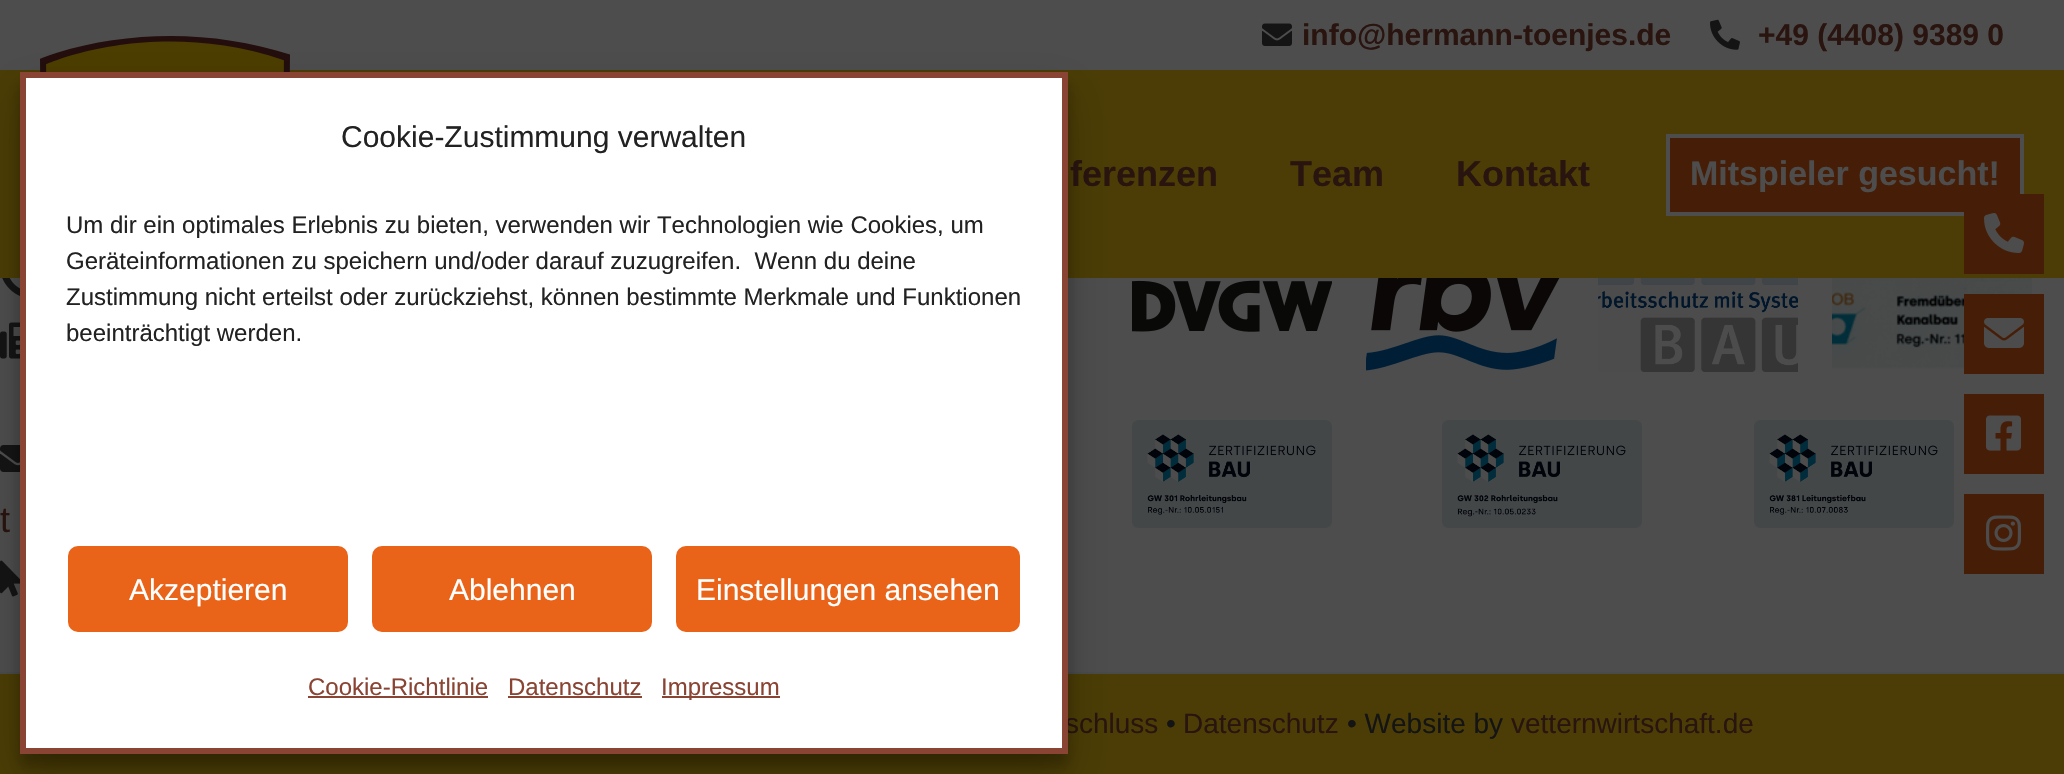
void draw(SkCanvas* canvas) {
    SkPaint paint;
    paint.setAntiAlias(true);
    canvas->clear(0xFF4D4D4D);
    canvas->drawImageRect(SkImages::DeferredFromEncodedData(SkData::MakeFromFileName("img1.png")), SkRect::MakeXYWH(1262, 23, 30, 23), SkSamplingOptions());
    SkFont font1(fontMgr->matchFamilyStyle("Liberation Sans", SkFontStyle::Bold()), 30);
    font1.setSubpixel(true);
    paint.setColor(0xFF29140F);
    canvas->drawString("info@hermann-toenjes.de", 1302, 45, font1, paint);
    canvas->drawImageRect(SkImages::DeferredFromEncodedData(SkData::MakeFromFileName("img2.png")), SkRect::MakeXYWH(1710, 19, 30, 31), SkSamplingOptions());
    canvas->drawString("+49 (4408) 9389 0", 1758, 45, font1, paint);
    paint.setColor(0xFF4B3D05);
    canvas->drawRect(SkRect::MakeXYWH(0, 70, 2064, 208), paint);
    canvas->drawImageRect(SkImages::DeferredFromEncodedData(SkData::MakeFromFileName("img3.png")), SkRect::MakeXYWH(40, 36, 250, 36), SkSamplingOptions());
    SkFont font2(fontMgr->matchFamilyStyle("Liberation Sans", SkFontStyle::Bold()), 36);
    font2.setSubpixel(true);
    paint.setColor(0xFF29140F);
    canvas->drawString("ferenzen", 1070, 186, font2, paint);
    canvas->drawString("Team", 1290, 186, font2, paint);
    canvas->drawString("Kontakt", 1456, 186, font2, paint);
    paint.setColor(0xFF461E08);
    canvas->drawRect(SkRect::MakeXYWH(1668, 136, 354, 78), paint);
    paint.setStyle(SkPaint::kStroke_Style);
    paint.setStrokeWidth(4);
    paint.setColor(0xFF4D4D4D);
    canvas->drawRect(SkRect::MakeXYWH(1668, 136, 354, 78), paint);
    SkFont font3(fontMgr->matchFamilyStyle("Liberation Sans", SkFontStyle::Bold()), 34);
    font3.setSubpixel(true);
    paint.setStyle(SkPaint::kFill_Style);
    canvas->drawString("Mitspieler gesucht!", 1690, 185, font3, paint);
    canvas->drawImageRect(SkImages::DeferredFromEncodedData(SkData::MakeFromFileName("img4.png")), SkRect::MakeXYWH(2, 278, 18, 18), SkSamplingOptions());
    canvas->drawImageRect(SkImages::DeferredFromEncodedData(SkData::MakeFromFileName("img5.png")), SkRect::MakeXYWH(0, 322, 20, 37), SkSamplingOptions());
    canvas->drawImageRect(SkImages::DeferredFromEncodedData(SkData::MakeFromFileName("img6.png")), SkRect::MakeXYWH(0, 445, 20, 27), SkSamplingOptions());
    SkFont font4(fontMgr->matchFamilyStyle("Liberation Sans", SkFontStyle::Normal()), 36);
    font4.setSubpixel(true);
    paint.setColor(0xFF29140F);
    canvas->drawString("t", 0, 532, font4, paint);
    canvas->drawImageRect(SkImages::DeferredFromEncodedData(SkData::MakeFromFileName("img7.png")), SkRect::MakeXYWH(0, 560, 20, 37), SkSamplingOptions());
    canvas->drawImageRect(SkImages::DeferredFromEncodedData(SkData::MakeFromFileName("img8.png")), SkRect::MakeXYWH(1132, 280, 200, 52), SkSamplingOptions());
    canvas->drawImageRect(SkImages::DeferredFromEncodedData(SkData::MakeFromFileName("img9.png")), SkRect::MakeXYWH(1366, 278, 194, 93), SkSamplingOptions());
    canvas->drawImageRect(SkImages::DeferredFromEncodedData(SkData::MakeFromFileName("img10.png")), SkRect::MakeXYWH(1598, 278, 200, 94), SkSamplingOptions());
    canvas->drawImageRect(SkImages::DeferredFromEncodedData(SkData::MakeFromFileName("img11.png")), SkRect::MakeXYWH(1832, 278, 200, 91), SkSamplingOptions());
    canvas->drawImageRect(SkImages::DeferredFromEncodedData(SkData::MakeFromFileName("img12.png")), SkRect::MakeXYWH(1132, 420, 200, 108), SkSamplingOptions());
    canvas->drawImageRect(SkImages::DeferredFromEncodedData(SkData::MakeFromFileName("img13.png")), SkRect::MakeXYWH(1442, 420, 200, 108), SkSamplingOptions());
    canvas->drawImageRect(SkImages::DeferredFromEncodedData(SkData::MakeFromFileName("img14.png")), SkRect::MakeXYWH(1754, 420, 200, 108), SkSamplingOptions());
    paint.setColor(0xFF4B3D05);
    canvas->drawRect(SkRect::MakeXYWH(0, 674, 2064, 100), paint);
    paint.setColor(0xFF494A4A);
    canvas->drawRect(SkRect::MakeXYWH(0, 672, 2064, 2), paint);
    SkFont font5(fontMgr->matchFamilyStyle("Liberation Sans", SkFontStyle::Normal()), 28);
    font5.setSubpixel(true);
    paint.setColor(0xFF29140F);
    canvas->drawString("schluss", 1065, 733, font5, paint);
    paint.setColor(0xFF141414);
    canvas->drawString("•", 1166, 733, font5, paint);
    paint.setColor(0xFF29140F);
    canvas->drawString("Datenschutz", 1183, 733, font5, paint);
    paint.setColor(0xFF141414);
    canvas->drawString("• Website by", 1347, 733, font5, paint);
    paint.setColor(0xFF29140F);
    canvas->drawString("vetternwirtschaft.de", 1511, 733, font5, paint);
    paint.setColor(0x3B000000);
    paint.setMaskFilter(SkMaskFilter::MakeBlur(kNormal_SkBlurStyle, 6));
    canvas->drawRect(SkRect::MakeXYWH(20, 84, 1048, 682), paint);
    paint.setMaskFilter(nullptr);
    paint.setColor(0x30000000);
    paint.setMaskFilter(SkMaskFilter::MakeBlur(kNormal_SkBlurStyle, 20));
    canvas->drawRect(SkRect::MakeXYWH(20, 92, 1048, 682), paint);
    paint.setMaskFilter(nullptr);
    paint.setColor(0xFFFFFFFF);
    canvas->drawRect(SkRect::MakeXYWH(23, 75, 1042, 676), paint);
    paint.setStyle(SkPaint::kStroke_Style);
    paint.setStrokeWidth(6);
    paint.setColor(0xFF8A4433);
    canvas->drawRect(SkRect::MakeXYWH(23, 75, 1042, 676), paint);
    SkFont font6(fontMgr->matchFamilyStyle("Liberation Sans", SkFontStyle::Normal()), 30);
    font6.setSubpixel(true);
    paint.setStyle(SkPaint::kFill_Style);
    paint.setColor(0xFF222222);
    canvas->drawString("Cookie-Zustimmung verwalten", 341, 147, font6, paint);
    SkFont font7(fontMgr->matchFamilyStyle("Liberation Sans", SkFontStyle::Normal()), 24);
    font7.setSubpixel(true);
    canvas->drawString("Um dir ein optimales Erlebnis zu bieten, verwenden wir Technologien wie Cookies, um", 66, 233, font7, paint);
    canvas->drawString("Geräteinformationen zu speichern und/oder darauf zuzugreifen.  Wenn du deine", 66, 269, font7, paint);
    canvas->drawString("Zustimmung nicht erteilst oder zurückziehst, können bestimmte Merkmale und Funktionen", 66, 305, font7, paint);
    canvas->drawString("beeinträchtigt werden.", 66, 341, font7, paint);
    paint.setColor(0xFFE96319);
    canvas->drawRoundRect(SkRect::MakeXYWH(67, 545, 282, 88), 11, 11, paint);
    paint.setStyle(SkPaint::kStroke_Style);
    paint.setStrokeWidth(2);
    paint.setColor(0xFFFFFFFF);
    canvas->drawRoundRect(SkRect::MakeXYWH(67, 545, 282, 88), 11, 11, paint);
    paint.setStyle(SkPaint::kFill_Style);
    canvas->drawString("Akzeptieren", 129, 600, font6, paint);
    paint.setColor(0xFFE96319);
    canvas->drawRoundRect(SkRect::MakeXYWH(371, 545, 282, 88), 11, 11, paint);
    paint.setStyle(SkPaint::kStroke_Style);
    paint.setColor(0xFFFFFFFF);
    canvas->drawRoundRect(SkRect::MakeXYWH(371, 545, 282, 88), 11, 11, paint);
    paint.setStyle(SkPaint::kFill_Style);
    canvas->drawString("Ablehnen", 449, 600, font6, paint);
    paint.setColor(0xFFE96319);
    canvas->drawRoundRect(SkRect::MakeXYWH(675, 545, 346, 88), 11, 11, paint);
    paint.setStyle(SkPaint::kStroke_Style);
    paint.setColor(0xFFFFFFFF);
    canvas->drawRoundRect(SkRect::MakeXYWH(675, 545, 346, 88), 11, 11, paint);
    paint.setStyle(SkPaint::kFill_Style);
    canvas->drawString("Einstellungen ansehen", 696, 600, font6, paint);
    paint.setColor(0xFF8A4433);
    canvas->drawString("Cookie-Richtlinie", 308, 695, font7, paint);
    canvas->drawRect(SkRect::MakeXYWH(308, 696, 180, 2), paint);
    canvas->drawString("Datenschutz", 508, 695, font7, paint);
    canvas->drawRect(SkRect::MakeXYWH(508, 696, 134, 2), paint);
    canvas->drawRect(SkRect::MakeXYWH(662, 696, 118, 2), paint);
    canvas->drawString("Impressum", 661, 695, font7, paint);
    paint.setColor(0xFF461E08);
    canvas->drawRect(SkRect::MakeXYWH(1964, 194, 80, 80), paint);
    canvas->drawImageRect(SkImages::DeferredFromEncodedData(SkData::MakeFromFileName("img15.png")), SkRect::MakeXYWH(1984, 213, 40, 40), SkSamplingOptions());
    canvas->drawRect(SkRect::MakeXYWH(1964, 294, 80, 80), paint);
    canvas->drawImageRect(SkImages::DeferredFromEncodedData(SkData::MakeFromFileName("img16.png")), SkRect::MakeXYWH(1984, 318, 40, 30), SkSamplingOptions());
    canvas->drawRect(SkRect::MakeXYWH(1964, 394, 80, 80), paint);
    canvas->drawImageRect(SkImages::DeferredFromEncodedData(SkData::MakeFromFileName("img17.png")), SkRect::MakeXYWH(1986, 415, 35, 36), SkSamplingOptions());
    canvas->drawRect(SkRect::MakeXYWH(1964, 494, 80, 80), paint);
    canvas->drawImageRect(SkImages::DeferredFromEncodedData(SkData::MakeFromFileName("img18.png")), SkRect::MakeXYWH(1986, 515, 35, 36), SkSamplingOptions());
}
